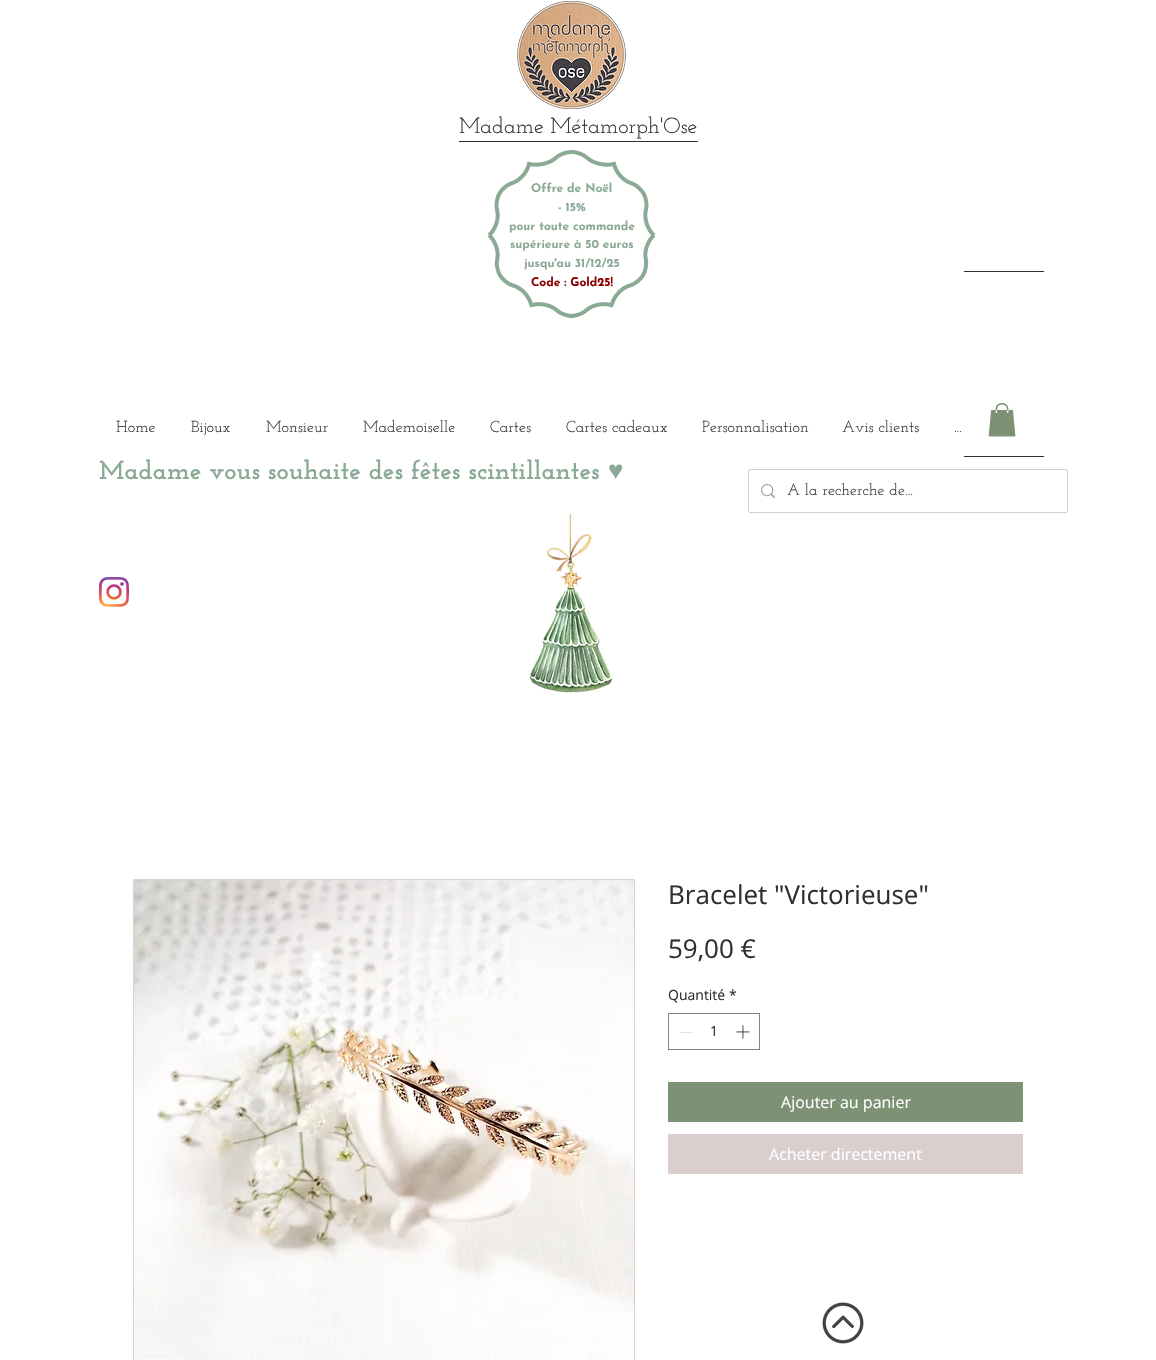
void draw(SkCanvas* canvas) {
    SkPaint paint;
    paint.setAntiAlias(true);
    canvas->clear(0xFFFFFFFF);
    canvas->drawImageRect(SkImages::DeferredFromEncodedData(SkData::MakeFromFileName("img1.png")), SkRect::MakeXYWH(517, 1, 109, 108), SkSamplingOptions());
    SkFont font1(fontMgr->matchFamilyStyle("Josefin Slab", SkFontStyle::Normal()), 22);
    font1.setSubpixel(true);
    paint.setColor(0xFF303030);
    canvas->drawString("Madame Métamorph'Ose", 459, 133, font1, paint);
    canvas->drawRect(SkRect::MakeXYWH(459, 141, 239, 1), paint);
    canvas->drawImageRect(SkImages::DeferredFromEncodedData(SkData::MakeFromFileName("img2.png")), SkRect::MakeXYWH(487, 150, 169, 168), SkSamplingOptions());
    SkFont font2(fontMgr->matchFamilyStyle("Josefin Sans", SkFontStyle(100, SkFontStyle::kNormal_Width, SkFontStyle::kUpright_Slant)), 12);
    font2.setSubpixel(true);
    paint.setColor(0xFF8BAA95);
    canvas->drawString("Offre de Noël", 531, 192, font2, paint);
    canvas->drawString("- 15%", 558, 211, font2, paint);
    canvas->drawString("pour toute commande", 509, 230, font2, paint);
    canvas->drawString("supérieure à 50 euros", 510, 248, font2, paint);
    canvas->drawString("jusqu'au 31/12/25", 524, 267, font2, paint);
    paint.setColor(0xFF8B0000);
    canvas->drawString("Code : Gold25!", 531, 286, font2, paint);
    paint.setColor(0xFF303030);
    canvas->drawRect(SkRect::MakeXYWH(964, 271, 80, 1), paint);
    SkFont font3(fontMgr->matchFamilyStyle("Josefin Slab", SkFontStyle::Normal()), 16);
    font3.setSubpixel(true);
    canvas->drawString("Home", 116, 432, font3, paint);
    canvas->drawString("Bijoux", 191, 432, font3, paint);
    canvas->drawString("Monsieur", 266, 432, font3, paint);
    canvas->drawString("Mademoiselle", 363, 432, font3, paint);
    canvas->drawString("Cartes", 490, 432, font3, paint);
    canvas->drawString("Cartes cadeaux", 566, 432, font3, paint);
    canvas->drawString("Personnalisation", 702, 432, font3, paint);
    canvas->drawString("Avis clients", 842, 432, font3, paint);
    canvas->drawString("...", 954, 432, font3, paint);
    canvas->drawImageRect(SkImages::DeferredFromEncodedData(SkData::MakeFromFileName("img3.png")), SkRect::MakeXYWH(988, 403, 28, 34), SkSamplingOptions());
    canvas->drawRect(SkRect::MakeXYWH(964, 456, 80, 1), paint);
    SkFont font4(fontMgr->matchFamilyStyle("Josefin Slab", SkFontStyle::Bold()), 26);
    font4.setSubpixel(true);
    paint.setColor(0xFF8BAA95);
    canvas->drawString("Madame vous souhaite des fêtes scintillantes", 99, 479, font4, paint);
    SkFont font5(fontMgr->matchFamilyStyle("Liberation Serif", SkFontStyle::Bold()), 26);
    font5.setSubpixel(true);
    canvas->drawString("♥", 608, 479, font5, paint);
    paint.setStyle(SkPaint::kStroke_Style);
    paint.setStrokeWidth(1);
    paint.setColor(0xFFCBD3C8);
    canvas->drawRoundRect(SkRect::MakeXYWH(748.5f, 469.5f, 319, 43), 1.5f, 1.5f, paint);
    paint.setStyle(SkPaint::kFill_Style);
    paint.setColor(0xFFFFFFFF);
    canvas->drawRoundRect(SkRect::MakeXYWH(749, 470, 318, 42), 1, 1, paint);
    canvas->drawImageRect(SkImages::DeferredFromEncodedData(SkData::MakeFromFileName("img4.png")), SkRect::MakeXYWH(761, 484, 14, 15), SkSamplingOptions());
    paint.setColor(0xFF303030);
    canvas->drawString("A la recherche de...", 787, 495, font3, paint);
    canvas->drawImageRect(SkImages::DeferredFromEncodedData(SkData::MakeFromFileName("img5.png")), SkRect::MakeXYWH(99, 577, 30, 30), SkSamplingOptions());
    canvas->drawImageRect(SkImages::DeferredFromEncodedData(SkData::MakeFromFileName("img6.png")), SkRect::MakeXYWH(529, 514, 84, 179), SkSamplingOptions());
    paint.setStyle(SkPaint::kStroke_Style);
    paint.setColor(0xFFD4D4D4);
    canvas->drawRect(SkRect::MakeXYWH(133.5f, 879.5f, 501, 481), paint);
    canvas->drawImageRect(SkImages::DeferredFromEncodedData(SkData::MakeFromFileName("img7.png")), SkRect::MakeXYWH(134, 880, 500, 480), SkSamplingOptions());
    SkFont font6(fontMgr->matchFamilyStyle("Open Sans", SkFontStyle::Normal()), 26);
    font6.setSubpixel(true);
    paint.setStyle(SkPaint::kFill_Style);
    paint.setColor(0xFF303030);
    canvas->drawString("Bracelet \"Victorieuse\"", 668, 904, font6, paint);
    canvas->drawString("59,00 €", 668, 958, font6, paint);
    SkFont font7(fontMgr->matchFamilyStyle("Open Sans", SkFontStyle::Normal()), 14);
    font7.setSubpixel(true);
    canvas->drawString("Quantité", 668, 1000, font7, paint);
    canvas->drawString("*", 729, 1000, font7, paint);
    paint.setStyle(SkPaint::kStroke_Style);
    paint.setColor(0xFF838383);
    canvas->drawRect(SkRect::MakeXYWH(668.5f, 1013.5f, 91, 36), paint);
    paint.setStyle(SkPaint::kFill_Style);
    paint.setColor(0xFFE3E3E3);
    canvas->drawRect(SkRect::MakeXYWH(680, 1032, 13, 1), paint);
    paint.setColor(0xFF303030);
    canvas->drawString("1", 710, 1036, font7, paint);
    canvas->drawImageRect(SkImages::DeferredFromEncodedData(SkData::MakeFromFileName("img8.png")), SkRect::MakeXYWH(736, 1025, 14, 14), SkSamplingOptions());
    paint.setColor(0xFF7D9174);
    canvas->drawRect(SkRect::MakeXYWH(668, 1082, 355, 40), paint);
    SkFont font8(fontMgr->matchFamilyStyle("Open Sans", SkFontStyle::Normal()), 16);
    font8.setSubpixel(true);
    paint.setColor(0xFFFFFFFF);
    canvas->drawString("Ajouter au panier", 781, 1108, font8, paint);
    paint.setColor(0xFFDBCECF);
    canvas->drawRect(SkRect::MakeXYWH(668, 1134, 355, 40), paint);
    paint.setColor(0xFFFFFFFF);
    canvas->drawString("Acheter directement", 769, 1160, font8, paint);
    canvas->drawImageRect(SkImages::DeferredFromEncodedData(SkData::MakeFromFileName("img9.png")), SkRect::MakeXYWH(822, 1302, 42, 42), SkSamplingOptions());
}
